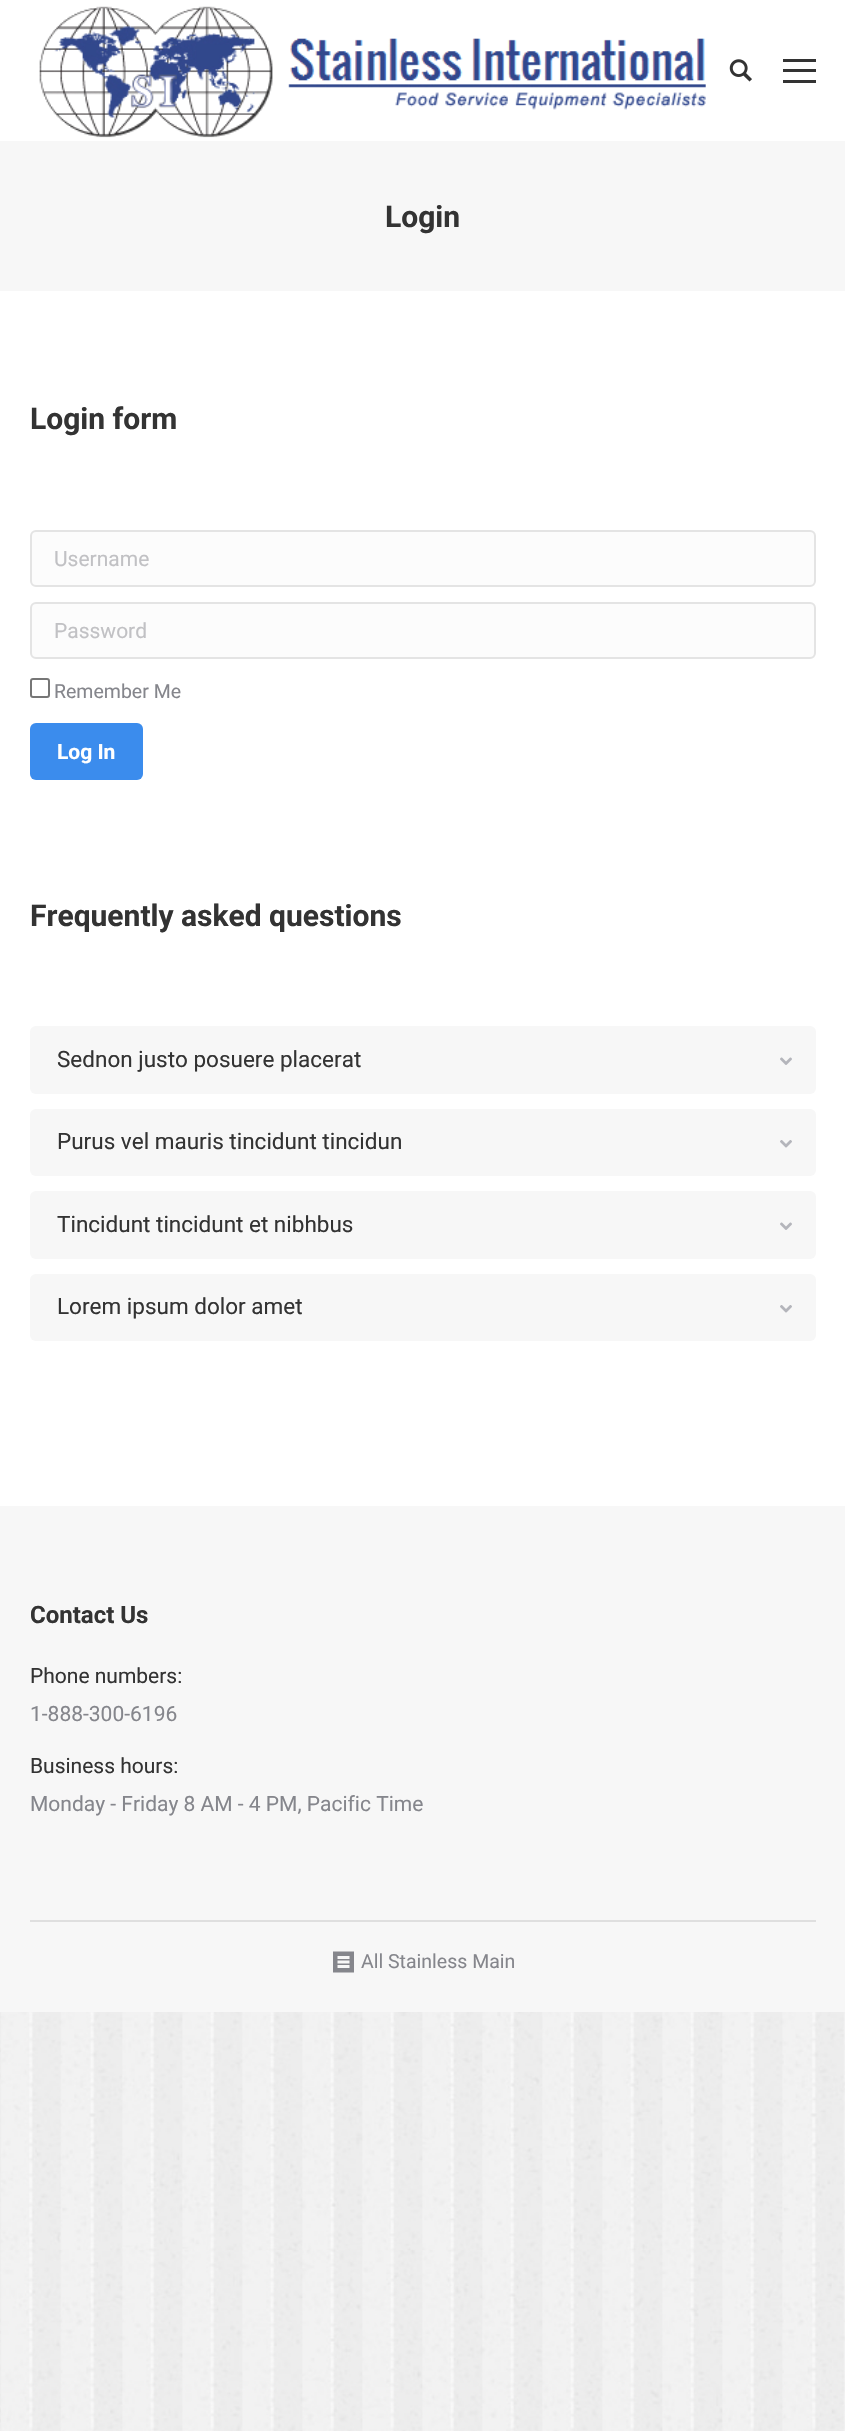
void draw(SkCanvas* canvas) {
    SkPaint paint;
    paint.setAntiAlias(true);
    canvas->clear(0xFFFFFFFF);
    canvas->drawImageRect(SkImages::DeferredFromEncodedData(SkData::MakeFromFileName("img1.png")), SkRect::MakeXYWH(0, 2012, 845, 419), SkSamplingOptions());
    canvas->drawImageRect(SkImages::DeferredFromEncodedData(SkData::MakeFromFileName("img2.png")), SkRect::MakeXYWH(39, 6, 667, 132), SkSamplingOptions());
    canvas->drawImageRect(SkImages::DeferredFromEncodedData(SkData::MakeFromFileName("img3.png")), SkRect::MakeXYWH(729, 59, 23, 23), SkSamplingOptions());
    paint.setColor(0xFF333333);
    canvas->drawRect(SkRect::MakeXYWH(783, 69, 33, 3), paint);
    canvas->drawRect(SkRect::MakeXYWH(783, 59, 33, 3), paint);
    canvas->drawRect(SkRect::MakeXYWH(783, 80, 33, 3), paint);
    paint.setColor(0xFFF7F7F7);
    canvas->drawRect(SkRect::MakeXYWH(0, 141, 845, 150), paint);
    SkFont font1(fontMgr->matchFamilyStyle("Roboto", SkFontStyle::Bold()), 30);
    font1.setSubpixel(true);
    paint.setColor(0xFF333333);
    canvas->drawString("Login", 385, 227, font1, paint);
    canvas->drawString("Login form", 30, 429, font1, paint);
    paint.setColor(0xFFFCFCFC);
    canvas->drawRoundRect(SkRect::MakeXYWH(31, 531, 784, 55), 5, 5, paint);
    paint.setStyle(SkPaint::kStroke_Style);
    paint.setStrokeWidth(2);
    paint.setColor(0xFFE4E4E4);
    canvas->drawRoundRect(SkRect::MakeXYWH(31, 531, 784, 55), 5, 5, paint);
    SkFont font2(fontMgr->matchFamilyStyle("Roboto", SkFontStyle::Normal()), 21);
    font2.setSubpixel(true);
    paint.setStyle(SkPaint::kFill_Style);
    paint.setColor(0xFFC1C1C4);
    canvas->drawString("Username", 54, 566, font2, paint);
    paint.setColor(0xFFFCFCFC);
    canvas->drawRoundRect(SkRect::MakeXYWH(31, 603, 784, 55), 5, 5, paint);
    paint.setStyle(SkPaint::kStroke_Style);
    paint.setColor(0xFFE4E4E4);
    canvas->drawRoundRect(SkRect::MakeXYWH(31, 603, 784, 55), 5, 5, paint);
    paint.setStyle(SkPaint::kFill_Style);
    paint.setColor(0xFFC1C1C4);
    canvas->drawString("Password", 54, 638, font2, paint);
    paint.setStyle(SkPaint::kStroke_Style);
    paint.setColor(0xFF767676);
    canvas->drawRoundRect(SkRect::MakeXYWH(31, 679, 18, 18), 2, 2, paint);
    SkFont font3(fontMgr->matchFamilyStyle("Roboto", SkFontStyle::Normal()), 19.5f);
    font3.setSubpixel(true);
    paint.setStyle(SkPaint::kFill_Style);
    paint.setColor(0xFF85868C);
    canvas->drawString("Remember Me", 54, 698, font3, paint);
    paint.setColor(0xFF3B8CED);
    canvas->drawRoundRect(SkRect::MakeXYWH(30, 723, 113, 57), 6, 6, paint);
    SkFont font4(fontMgr->matchFamilyStyle("Roboto", SkFontStyle::Bold()), 21);
    font4.setSubpixel(true);
    paint.setColor(0xFFFFFFFF);
    canvas->drawString("Log In", 57, 759, font4, paint);
    paint.setColor(0xFF333333);
    canvas->drawString("Frequently asked questions", 30, 926, font1, paint);
    paint.setColor(0xFFF7F7F7);
    canvas->drawRoundRect(SkRect::MakeXYWH(30, 1026, 786, 68), 6, 6, paint);
    SkFont font5(fontMgr->matchFamilyStyle("Roboto", SkFontStyle::Normal()), 22.5f);
    font5.setSubpixel(true);
    paint.setColor(0xFF333333);
    canvas->drawString("Sednon justo posuere placerat", 57, 1067, font5, paint);
    canvas->drawImageRect(SkImages::DeferredFromEncodedData(SkData::MakeFromFileName("img4.png")), SkRect::MakeXYWH(780, 1057, 12, 8), SkSamplingOptions());
    paint.setColor(0xFFF7F7F7);
    canvas->drawRoundRect(SkRect::MakeXYWH(30, 1109, 786, 67), 6, 6, paint);
    paint.setColor(0xFF333333);
    canvas->drawString("Purus vel mauris tincidunt tincidun", 57, 1149, font5, paint);
    canvas->drawImageRect(SkImages::DeferredFromEncodedData(SkData::MakeFromFileName("img5.png")), SkRect::MakeXYWH(780, 1140, 12, 8), SkSamplingOptions());
    paint.setColor(0xFFF7F7F7);
    canvas->drawRoundRect(SkRect::MakeXYWH(30, 1191, 786, 68), 6, 6, paint);
    paint.setColor(0xFF333333);
    canvas->drawString("Tincidunt tincidunt et nibhbus", 57, 1232, font5, paint);
    canvas->drawImageRect(SkImages::DeferredFromEncodedData(SkData::MakeFromFileName("img4.png")), SkRect::MakeXYWH(780, 1222, 12, 8), SkSamplingOptions());
    paint.setColor(0xFFF7F7F7);
    canvas->drawRoundRect(SkRect::MakeXYWH(30, 1274, 786, 67), 6, 6, paint);
    paint.setColor(0xFF333333);
    canvas->drawString("Lorem ipsum dolor amet", 57, 1314, font5, paint);
    canvas->drawImageRect(SkImages::DeferredFromEncodedData(SkData::MakeFromFileName("img5.png")), SkRect::MakeXYWH(780, 1305, 12, 8), SkSamplingOptions());
    paint.setColor(0xFFF7F7F7);
    canvas->drawRect(SkRect::MakeXYWH(0, 1506, 845, 506), paint);
    SkFont font6(fontMgr->matchFamilyStyle("Roboto", SkFontStyle::Bold()), 24);
    font6.setSubpixel(true);
    paint.setColor(0xFF333333);
    canvas->drawString("Contact Us", 30, 1623, font6, paint);
    canvas->drawString("Phone numbers:", 30, 1683, font2, paint);
    paint.setColor(0xFF85868C);
    canvas->drawString("1-888-300-6196", 30, 1721, font2, paint);
    paint.setColor(0xFF333333);
    canvas->drawString("Business hours:", 30, 1773, font2, paint);
    paint.setColor(0xFF85868C);
    canvas->drawString("Monday - Friday 8 AM - 4 PM, Pacific Time", 30, 1811, font2, paint);
    paint.setColor(0xFFDFDFDF);
    canvas->drawRect(SkRect::MakeXYWH(30, 1920, 786, 2), paint);
    canvas->drawImageRect(SkImages::DeferredFromEncodedData(SkData::MakeFromFileName("img6.png")), SkRect::MakeXYWH(333, 1951, 21, 22), SkSamplingOptions());
    paint.setColor(0xFF85868C);
    canvas->drawString("All Stainless Main", 361, 1968, font3, paint);
}
